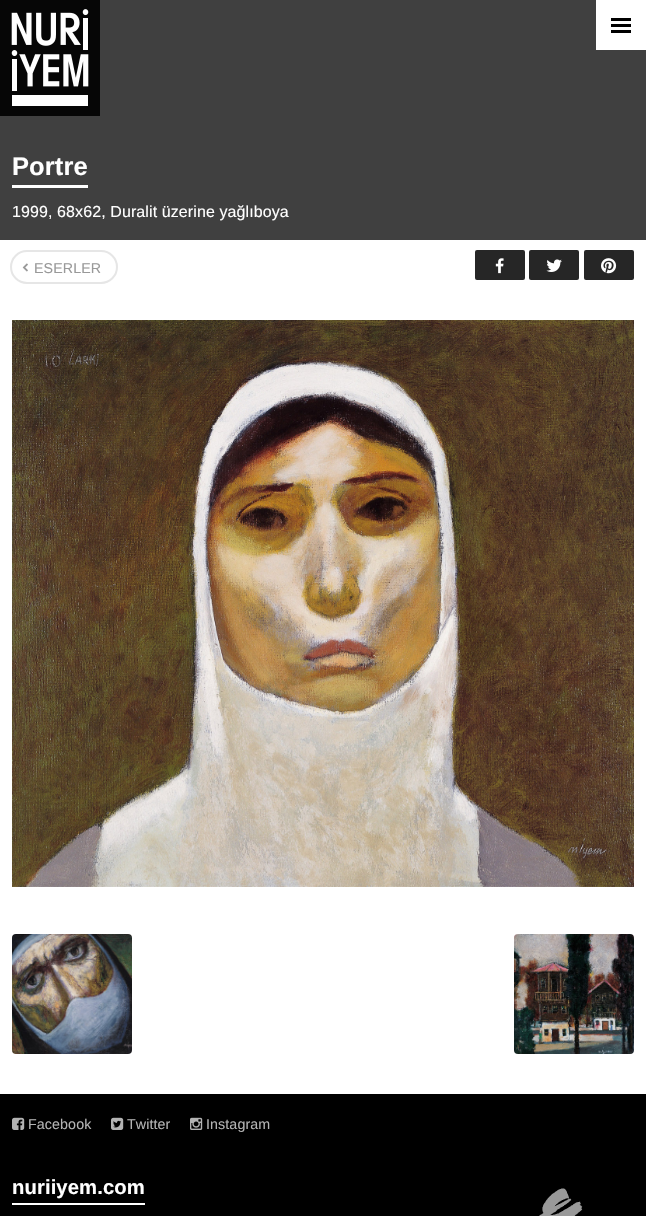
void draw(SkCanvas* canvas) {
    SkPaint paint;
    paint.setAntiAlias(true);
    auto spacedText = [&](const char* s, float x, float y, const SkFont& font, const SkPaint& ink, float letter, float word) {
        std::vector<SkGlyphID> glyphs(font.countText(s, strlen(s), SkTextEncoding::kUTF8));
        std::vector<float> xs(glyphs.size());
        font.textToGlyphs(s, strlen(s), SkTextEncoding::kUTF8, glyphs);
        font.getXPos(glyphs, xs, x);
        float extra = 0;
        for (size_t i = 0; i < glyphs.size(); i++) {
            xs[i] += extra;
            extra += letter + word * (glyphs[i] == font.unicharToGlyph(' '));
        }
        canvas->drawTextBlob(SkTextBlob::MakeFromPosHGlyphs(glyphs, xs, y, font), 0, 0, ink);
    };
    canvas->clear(0xFFFFFFFF);
    paint.setColor(0xFF404040);
    canvas->drawRect(SkRect::MakeXYWH(0, 0, 646, 240), paint);
    paint.setColor(0xFFFFFFFF);
    canvas->drawRect(SkRect::MakeXYWH(596, 0, 50, 50), paint);
    paint.setColor(0xFF000000);
    canvas->drawRect(SkRect::MakeXYWH(611, 24, 20, 3), paint);
    canvas->drawRect(SkRect::MakeXYWH(611, 18, 20, 3), paint);
    canvas->drawRect(SkRect::MakeXYWH(611, 30, 20, 3), paint);
    paint.setColor(0xFF060606);
    canvas->drawRect(SkRect::MakeXYWH(0, 0, 100, 116), paint);
    canvas->drawImageRect(SkImages::DeferredFromEncodedData(SkData::MakeFromFileName("img1.png")), SkRect::MakeXYWH(11, 9, 78, 97), SkSamplingOptions());
    SkFont font1(fontMgr->matchFamilyStyle("Liberation Sans", SkFontStyle::Bold()), 25.5f);
    font1.setSubpixel(true);
    paint.setColor(0xFFFFFFFF);
    spacedText("Portre", 12, 175, font1, paint, 0.1f, 0);
    canvas->drawRect(SkRect::MakeXYWH(12, 185, 76, 3), paint);
    SkFont font2(fontMgr->matchFamilyStyle("Liberation Sans", SkFontStyle::Normal()), 16);
    font2.setSubpixel(true);
    spacedText("1999, 68x62, Duralit üzerine yağlıboya", 12, 217, font2, paint, 0.1f, 0);
    paint.setColor(0xFF262626);
    canvas->drawRoundRect(SkRect::MakeXYWH(475, 250, 50, 30), 2, 2, paint);
    canvas->drawImageRect(SkImages::DeferredFromEncodedData(SkData::MakeFromFileName("img2.png")), SkRect::MakeXYWH(495, 258, 9, 16), SkSamplingOptions());
    canvas->drawRoundRect(SkRect::MakeXYWH(529, 250, 50, 30), 2, 2, paint);
    canvas->drawImageRect(SkImages::DeferredFromEncodedData(SkData::MakeFromFileName("img3.png")), SkRect::MakeXYWH(546, 259, 16, 13), SkSamplingOptions());
    canvas->drawRoundRect(SkRect::MakeXYWH(584, 250, 50, 30), 2, 2, paint);
    canvas->drawImageRect(SkImages::DeferredFromEncodedData(SkData::MakeFromFileName("img4.png")), SkRect::MakeXYWH(601, 258, 16, 16), SkSamplingOptions());
    paint.setStyle(SkPaint::kStroke_Style);
    paint.setStrokeWidth(2);
    paint.setColor(0xFFE6E6E6);
    canvas->drawRoundRect(SkRect::MakeXYWH(11, 251, 106, 32), 16, 16, paint);
    canvas->drawImageRect(SkImages::DeferredFromEncodedData(SkData::MakeFromFileName("img5.png")), SkRect::MakeXYWH(22, 263, 6, 9), SkSamplingOptions());
    SkFont font3(fontMgr->matchFamilyStyle("Liberation Sans", SkFontStyle::Normal()), 14.25f);
    font3.setSubpixel(true);
    paint.setStyle(SkPaint::kFill_Style);
    paint.setColor(0xFF999999);
    spacedText("ESERLER", 34, 273, font3, paint, 0.1f, 0);
    canvas->drawImageRect(SkImages::DeferredFromEncodedData(SkData::MakeFromFileName("img6.png")), SkRect::MakeXYWH(12, 320, 622, 567), SkSamplingOptions());
    canvas->drawImageRect(SkImages::DeferredFromEncodedData(SkData::MakeFromFileName("img7.png")), SkRect::MakeXYWH(12, 934, 120, 120), SkSamplingOptions());
    canvas->drawImageRect(SkImages::DeferredFromEncodedData(SkData::MakeFromFileName("img8.png")), SkRect::MakeXYWH(514, 934, 120, 120), SkSamplingOptions());
    paint.setColor(0xFF000000);
    canvas->drawRect(SkRect::MakeXYWH(0, 1094, 646, 122), paint);
    canvas->drawImageRect(SkImages::DeferredFromEncodedData(SkData::MakeFromFileName("img9.png")), SkRect::MakeXYWH(12, 1117, 13, 13), SkSamplingOptions());
    paint.setColor(0xFFB3B3B3);
    spacedText("Facebook", 28, 1129, font3, paint, 0.1f, 0);
    canvas->drawImageRect(SkImages::DeferredFromEncodedData(SkData::MakeFromFileName("img10.png")), SkRect::MakeXYWH(111, 1117, 13, 13), SkSamplingOptions());
    spacedText("Twitter", 127, 1129, font3, paint, 0.1f, 0);
    canvas->drawImageRect(SkImages::DeferredFromEncodedData(SkData::MakeFromFileName("img11.png")), SkRect::MakeXYWH(190, 1117, 13, 13), SkSamplingOptions());
    spacedText("Instagram", 206, 1129, font3, paint, 0.1f, 0);
    paint.setColor(0xFFFFFFFF);
    canvas->drawRect(SkRect::MakeXYWH(12, 1203, 133, 2), paint);
    SkFont font4(fontMgr->matchFamilyStyle("Liberation Sans", SkFontStyle::Bold()), 20.25f);
    font4.setSubpixel(true);
    spacedText("nuriiyem.com", 12, 1194, font4, paint, 0.1f, 0);
    canvas->drawImageRect(SkImages::DeferredFromEncodedData(SkData::MakeFromFileName("img12.png")), SkRect::MakeXYWH(539, 1188, 44, 28), SkSamplingOptions());
}
